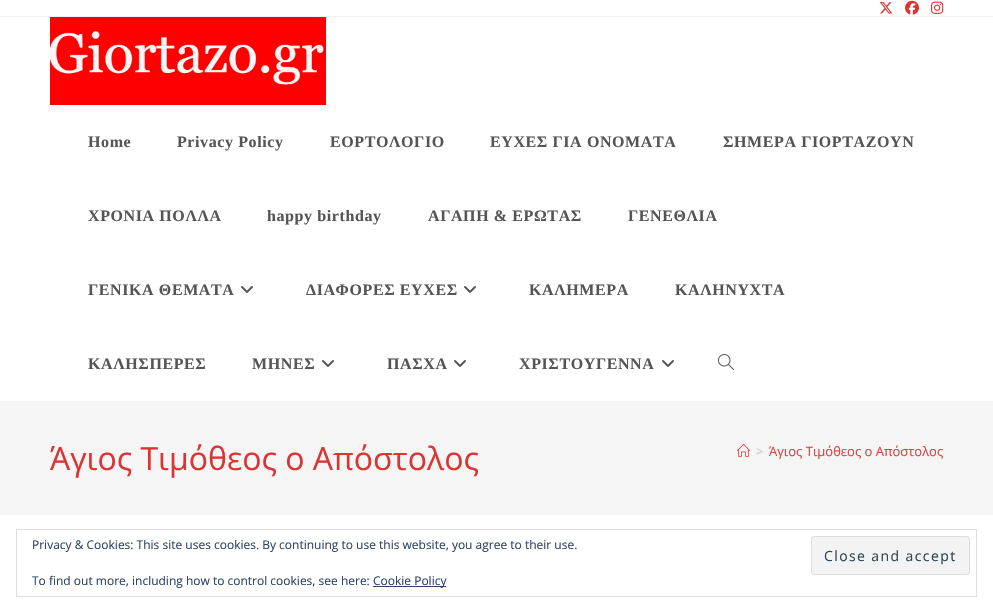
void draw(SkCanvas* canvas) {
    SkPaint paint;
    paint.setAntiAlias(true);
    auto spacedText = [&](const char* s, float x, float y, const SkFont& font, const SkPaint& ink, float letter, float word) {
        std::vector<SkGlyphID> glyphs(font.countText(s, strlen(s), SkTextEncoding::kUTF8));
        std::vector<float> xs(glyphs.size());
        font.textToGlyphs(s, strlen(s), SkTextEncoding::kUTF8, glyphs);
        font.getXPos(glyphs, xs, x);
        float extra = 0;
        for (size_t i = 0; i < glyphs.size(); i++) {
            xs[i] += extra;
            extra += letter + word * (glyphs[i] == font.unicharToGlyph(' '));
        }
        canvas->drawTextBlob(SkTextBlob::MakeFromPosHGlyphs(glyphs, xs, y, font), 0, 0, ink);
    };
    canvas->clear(0xFFFFFFFF);
    paint.setColor(0xFFF1F1F1);
    canvas->drawRect(SkRect::MakeXYWH(0, 16, 993, 1), paint);
    canvas->drawImageRect(SkImages::DeferredFromEncodedData(SkData::MakeFromFileName("img1.png")), SkRect::MakeXYWH(879, 2, 14, 12), SkSamplingOptions());
    canvas->drawImageRect(SkImages::DeferredFromEncodedData(SkData::MakeFromFileName("img2.png")), SkRect::MakeXYWH(905, 0, 14, 15), SkSamplingOptions());
    canvas->drawImageRect(SkImages::DeferredFromEncodedData(SkData::MakeFromFileName("img3.png")), SkRect::MakeXYWH(931, 1, 13, 13), SkSamplingOptions());
    canvas->drawRect(SkRect::MakeXYWH(0, 401, 993, 1), paint);
    canvas->drawImageRect(SkImages::DeferredFromEncodedData(SkData::MakeFromFileName("img4.png")), SkRect::MakeXYWH(50, 17, 276, 88), SkSamplingOptions());
    SkFont font1(fontMgr->matchFamilyStyle("Liberation Serif", SkFontStyle::Bold()), 16);
    font1.setSubpixel(true);
    paint.setColor(0xFF555555);
    spacedText("Home", 88, 147, font1, paint, 0.6f, 0);
    spacedText("Privacy Policy", 177, 147, font1, paint, 0.6f, 0);
    spacedText("ΕΟΡΤΟΛΟΓΙΟ", 330, 147, font1, paint, 0.6f, 0);
    spacedText("ΕΥΧΕΣ ΓΙΑ ΟΝΟΜΑΤΑ", 490, 147, font1, paint, 0.6f, 0);
    spacedText("ΣΗΜΕΡΑ ΓΙΟΡΤΑΖΟΥΝ", 723, 147, font1, paint, 0.6f, 0);
    spacedText("ΧΡΟΝΙΑ ΠΟΛΛΑ", 88, 221, font1, paint, 0.6f, 0);
    spacedText("happy birthday", 267, 221, font1, paint, 0.6f, 0);
    spacedText("ΑΓΑΠΗ & ΕΡΩΤΑΣ", 428, 221, font1, paint, 0.6f, 0);
    spacedText("ΓΕΝΕΘΛΙΑ", 628, 221, font1, paint, 0.6f, 0);
    spacedText("ΓΕΝΙΚΑ ΘΕΜΑΤΑ", 88, 295, font1, paint, 0.6f, 0);
    canvas->drawImageRect(SkImages::DeferredFromEncodedData(SkData::MakeFromFileName("img5.png")), SkRect::MakeXYWH(241, 286, 12, 7), SkSamplingOptions());
    spacedText("ΔΙΑΦΟΡΕΣ ΕΥΧΕΣ", 306, 295, font1, paint, 0.6f, 0);
    canvas->drawImageRect(SkImages::DeferredFromEncodedData(SkData::MakeFromFileName("img5.png")), SkRect::MakeXYWH(464, 286, 12, 7), SkSamplingOptions());
    spacedText("ΚΑΛΗΜΕΡΑ", 529, 295, font1, paint, 0.6f, 0);
    spacedText("ΚΑΛΗΝΥΧΤΑ", 675, 295, font1, paint, 0.6f, 0);
    spacedText("ΚΑΛΗΣΠΕΡΕΣ", 88, 369, font1, paint, 0.6f, 0);
    spacedText("ΜΗΝΕΣ", 252, 369, font1, paint, 0.6f, 0);
    canvas->drawImageRect(SkImages::DeferredFromEncodedData(SkData::MakeFromFileName("img5.png")), SkRect::MakeXYWH(322, 360, 12, 7), SkSamplingOptions());
    spacedText("ΠΑΣΧΑ", 387, 369, font1, paint, 0.6f, 0);
    canvas->drawImageRect(SkImages::DeferredFromEncodedData(SkData::MakeFromFileName("img5.png")), SkRect::MakeXYWH(454, 360, 12, 7), SkSamplingOptions());
    spacedText("ΧΡΙΣΤΟΥΓΕΝΝΑ", 519, 369, font1, paint, 0.6f, 0);
    canvas->drawImageRect(SkImages::DeferredFromEncodedData(SkData::MakeFromFileName("img5.png")), SkRect::MakeXYWH(662, 360, 12, 7), SkSamplingOptions());
    canvas->drawImageRect(SkImages::DeferredFromEncodedData(SkData::MakeFromFileName("img6.png")), SkRect::MakeXYWH(718, 354, 16, 16), SkSamplingOptions());
    paint.setColor(0xFFF5F5F5);
    canvas->drawRect(SkRect::MakeXYWH(0, 402, 993, 113), paint);
    SkFont font2(fontMgr->matchFamilyStyle("Open Sans", SkFontStyle::Normal()), 32);
    font2.setSubpixel(true);
    paint.setColor(0xFFDD3333);
    canvas->drawString("Άγιος Τιμόθεος ο Απόστολος", 50, 470, font2, paint);
    canvas->drawImageRect(SkImages::DeferredFromEncodedData(SkData::MakeFromFileName("img7.png")), SkRect::MakeXYWH(737, 443, 13, 14), SkSamplingOptions());
    SkFont font3(fontMgr->matchFamilyStyle("Open Sans", SkFontStyle::Normal()), 13);
    font3.setSubpixel(true);
    paint.setColor(0xFFC6C6C6);
    canvas->drawString(">", 756, 456, font3, paint);
    paint.setColor(0xFFDD4040);
    canvas->drawString("Άγιος Τιμόθεος ο Απόστολος", 769, 456, font3, paint);
    paint.setStyle(SkPaint::kStroke_Style);
    paint.setStrokeWidth(1);
    paint.setColor(0xFFDEDEDE);
    canvas->drawRect(SkRect::MakeXYWH(16.5f, 529.5f, 960, 67), paint);
    SkFont font4(fontMgr->matchFamilyStyle("Open Sans", SkFontStyle::Normal()), 12);
    font4.setSubpixel(true);
    paint.setStyle(SkPaint::kFill_Style);
    paint.setColor(0xFF2E4467);
    canvas->drawString("Privacy & Cookies: This site uses cookies. By continuing to use this website, you agree to their use.", 32, 549, font4, paint);
    paint.setColor(0xFFF3F3F3);
    canvas->drawRoundRect(SkRect::MakeXYWH(811.5f, 536.5f, 158, 38), 2.5f, 2.5f, paint);
    paint.setStyle(SkPaint::kStroke_Style);
    paint.setColor(0xFFDEDEDE);
    canvas->drawRoundRect(SkRect::MakeXYWH(811.5f, 536.5f, 158, 38), 2.5f, 2.5f, paint);
    SkFont font5(fontMgr->matchFamilyStyle("Open Sans", SkFontStyle::Normal()), 14);
    font5.setSubpixel(true);
    paint.setStyle(SkPaint::kFill_Style);
    paint.setColor(0xFF2E4453);
    spacedText("Close and accept", 824, 561, font5, paint, 1.4f, 0);
    paint.setColor(0xFF2E4467);
    canvas->drawString("To find out more, including how to control cookies, see here:", 32, 585, font4, paint);
    canvas->drawRect(SkRect::MakeXYWH(373, 586, 73, 1), paint);
    canvas->drawString("Cookie Policy", 373, 585, font4, paint);
}
